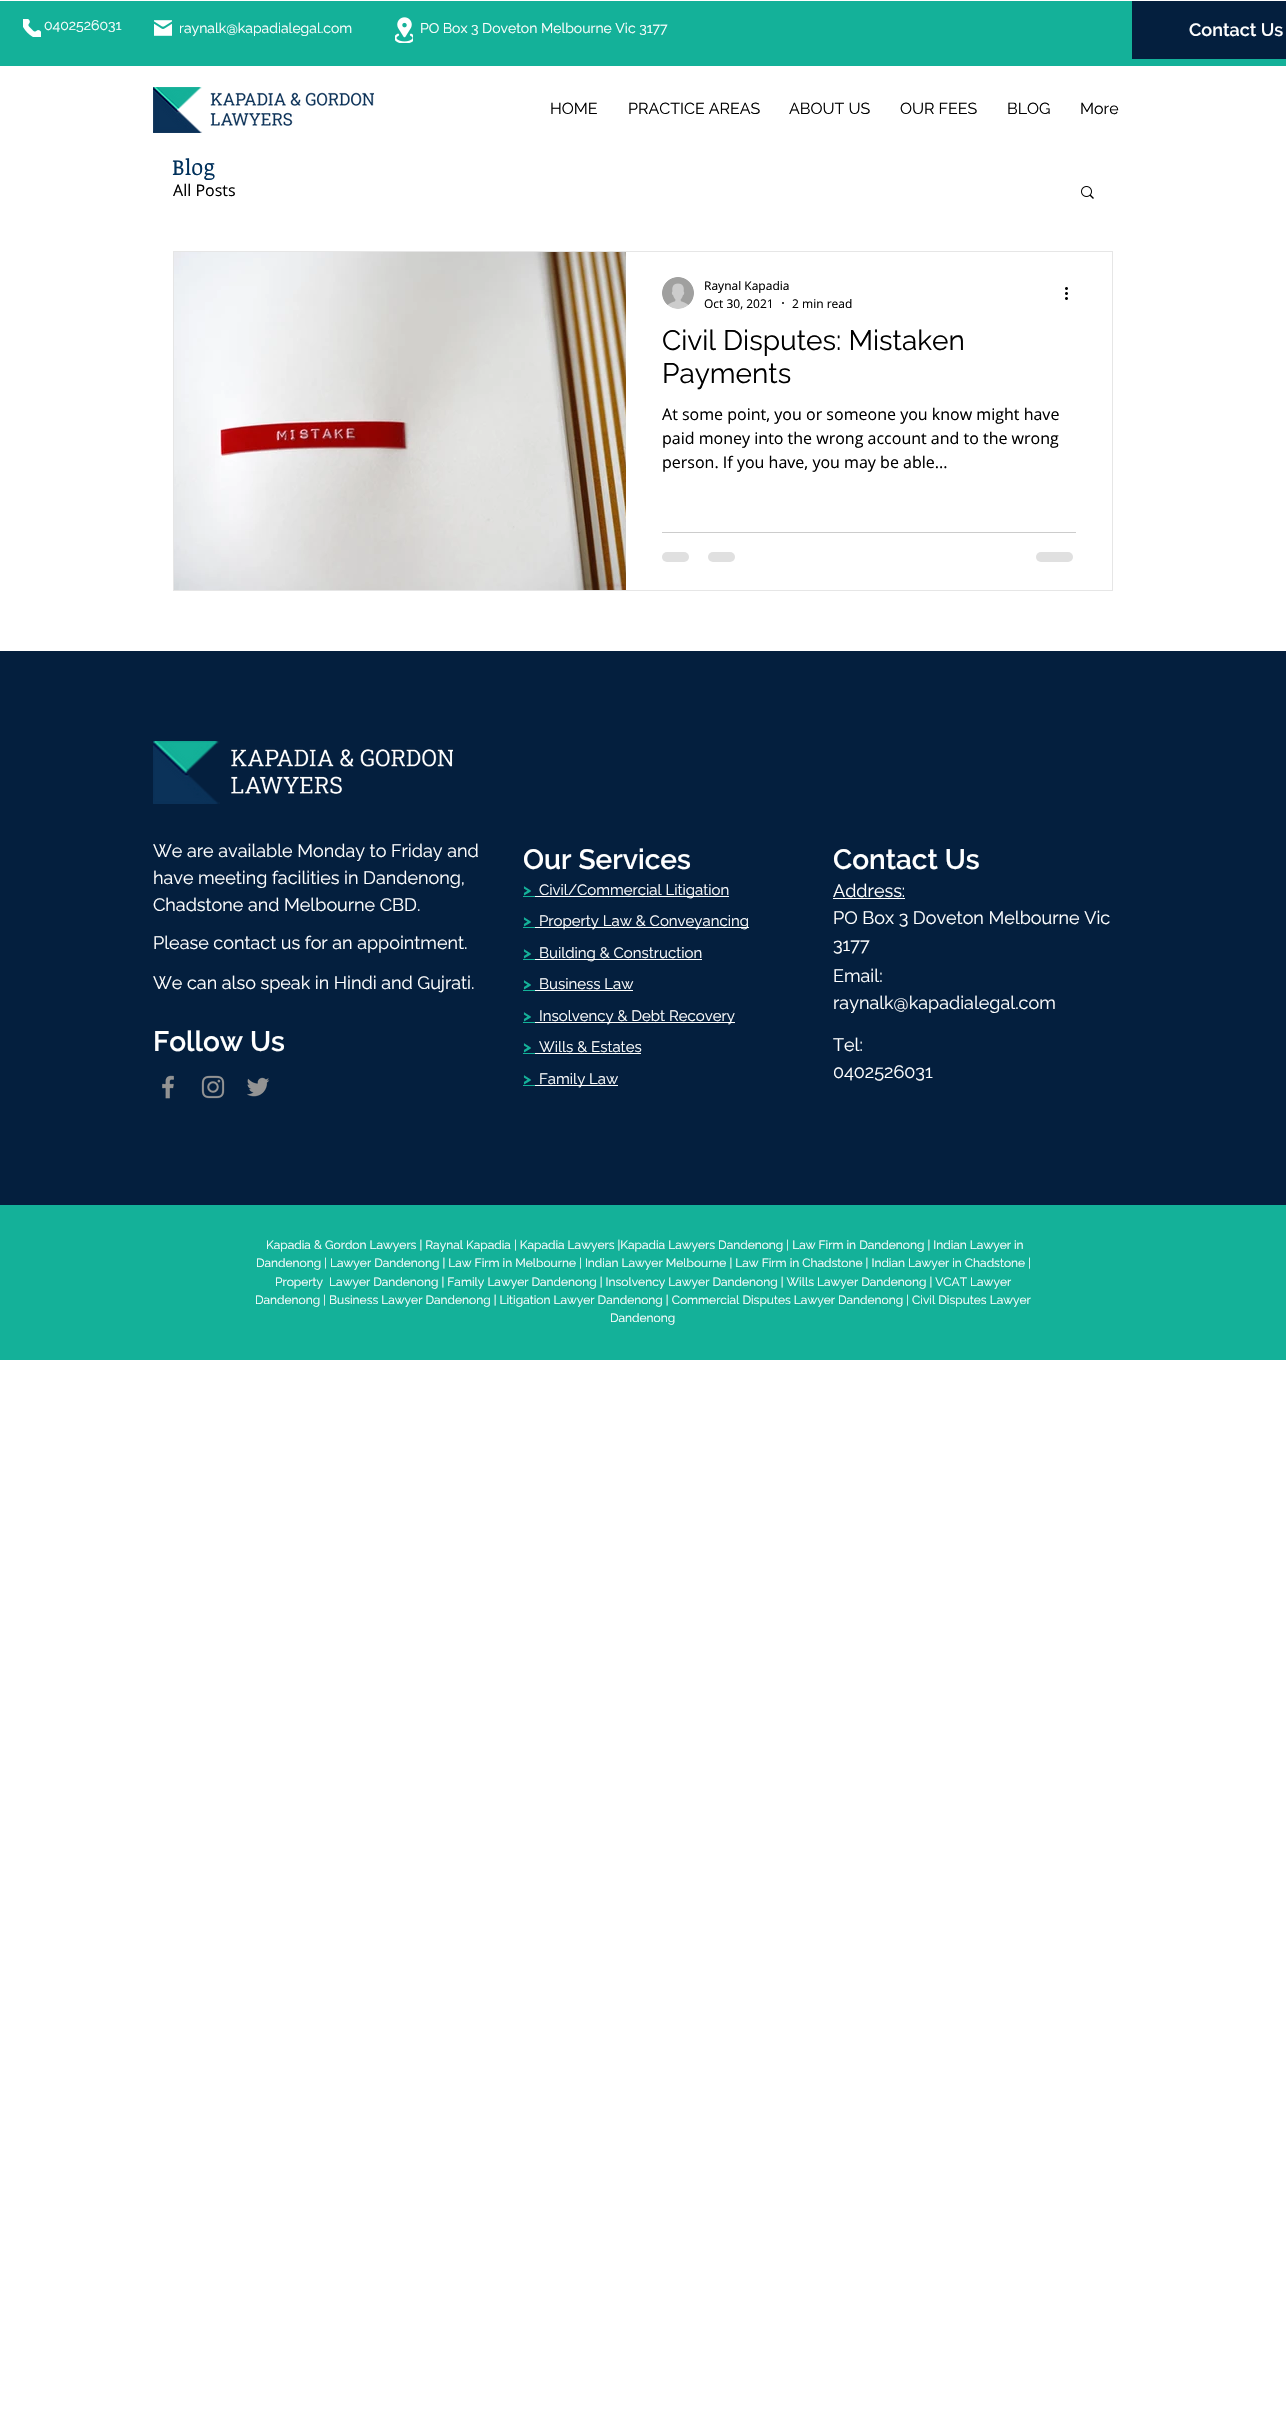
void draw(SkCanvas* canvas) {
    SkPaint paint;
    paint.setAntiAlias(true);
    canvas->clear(0xFFFFFFFF);
    paint.setColor(0xFF14B199);
    canvas->drawRect(SkRect::MakeXYWH(0, 1, 1286, 65), paint);
    canvas->drawImageRect(SkImages::DeferredFromEncodedData(SkData::MakeFromFileName("img1.png")), SkRect::MakeXYWH(23, 19, 18, 18), SkSamplingOptions());
    SkFont font1(fontMgr->matchFamilyStyle("Raleway", SkFontStyle::Normal()), 14);
    font1.setSubpixel(true);
    paint.setColor(0xFFFFFFFF);
    canvas->drawString("0402526031", 44, 30, font1, paint);
    canvas->drawImageRect(SkImages::DeferredFromEncodedData(SkData::MakeFromFileName("img2.png")), SkRect::MakeXYWH(154, 20, 18, 16), SkSamplingOptions());
    canvas->drawImageRect(SkImages::DeferredFromEncodedData(SkData::MakeFromFileName("img3.png")), SkRect::MakeXYWH(395, 17, 18, 26), SkSamplingOptions());
    canvas->drawString("PO Box 3 Doveton Melbourne Vic 3177", 420, 33, font1, paint);
    paint.setColor(0xFF041F3E);
    canvas->drawRect(SkRect::MakeXYWH(1132, 1, 154, 58), paint);
    SkFont font2(fontMgr->matchFamilyStyle("Raleway", SkFontStyle(600, SkFontStyle::kNormal_Width, SkFontStyle::kUpright_Slant)), 18);
    font2.setSubpixel(true);
    paint.setColor(0xFFFFFFFF);
    canvas->drawString("Contact Us", 1189, 36, font2, paint);
    canvas->drawString("raynalk@kapadialegal.com", 179, 33, font1, paint);
    canvas->drawImageRect(SkImages::DeferredFromEncodedData(SkData::MakeFromFileName("img4.png")), SkRect::MakeXYWH(153, 87, 221, 46), SkSamplingOptions());
    SkFont font3(fontMgr->matchFamilyStyle("Raleway", SkFontStyle::Normal()), 16);
    font3.setSubpixel(true);
    paint.setColor(0xFF000000);
    canvas->drawString("HOME", 550, 114, font3, paint);
    canvas->drawString("PRACTICE AREAS", 628, 114, font3, paint);
    canvas->drawString("ABOUT US", 789, 114, font3, paint);
    canvas->drawString("OUR FEES", 900, 114, font3, paint);
    canvas->drawString("BLOG", 1007, 114, font3, paint);
    canvas->drawString("More", 1080, 114, font3, paint);
    SkFont font4(fontMgr->matchFamilyStyle("Noticia Text", SkFontStyle::Normal()), 22);
    font4.setSubpixel(true);
    paint.setColor(0xFF00305B);
    canvas->drawString("Blog", 172, 175, font4, paint);
    SkFont font5(fontMgr->matchFamilyStyle("Open Sans", SkFontStyle::Normal()), 16);
    font5.setSubpixel(true);
    paint.setColor(0xFF000000);
    canvas->drawString("All Posts", 173, 196, font5, paint);
    canvas->drawImageRect(SkImages::DeferredFromEncodedData(SkData::MakeFromFileName("img5.png")), SkRect::MakeXYWH(1081, 186, 13, 13), SkSamplingOptions());
    paint.setStyle(SkPaint::kStroke_Style);
    paint.setStrokeWidth(1);
    paint.setColor(0xFFE6E6E6);
    canvas->drawRect(SkRect::MakeXYWH(173.5f, 251.5f, 939, 339), paint);
    canvas->drawImageRect(SkImages::DeferredFromEncodedData(SkData::MakeFromFileName("img6.png")), SkRect::MakeXYWH(174, 252, 452, 338), SkSamplingOptions());
    canvas->drawImageRect(SkImages::DeferredFromEncodedData(SkData::MakeFromFileName("img7.png")), SkRect::MakeXYWH(662, 277, 32, 32), SkSamplingOptions());
    SkFont font6(fontMgr->matchFamilyStyle("Open Sans", SkFontStyle::Normal()), 12);
    font6.setSubpixel(true);
    paint.setStyle(SkPaint::kFill_Style);
    paint.setColor(0xFF000000);
    canvas->drawString("Raynal Kapadia", 704, 290, font6, paint);
    canvas->drawString("Oct 30, 2021", 704, 308, font6, paint);
    canvas->drawCircle(783, 303, 1, paint);
    canvas->drawString("2 min read", 792, 308, font6, paint);
    canvas->drawImageRect(SkImages::DeferredFromEncodedData(SkData::MakeFromFileName("img8.png")), SkRect::MakeXYWH(1065, 287, 3, 13), SkSamplingOptions());
    SkFont font7(fontMgr->matchFamilyStyle("Raleway", SkFontStyle::Normal()), 28);
    font7.setSubpixel(true);
    canvas->drawString("Civil Disputes: Mistaken", 662, 350, font7, paint);
    canvas->drawString("Payments", 662, 383, font7, paint);
    canvas->drawString("At some point, you or someone you know might have", 662, 420, font5, paint);
    canvas->drawString("paid money into the wrong account and to the wrong", 662, 444, font5, paint);
    canvas->drawString("person. If you have, you may be able...", 662, 468, font5, paint);
    paint.setColor(0xFFCCCCCC);
    canvas->drawRect(SkRect::MakeXYWH(662, 532, 414, 1), paint);
    paint.setColor(0xFFE0E0E0);
    canvas->drawRoundRect(SkRect::MakeXYWH(662, 552, 27, 10), 5, 5, paint);
    canvas->drawRoundRect(SkRect::MakeXYWH(708, 552, 27, 10), 5, 5, paint);
    canvas->drawRoundRect(SkRect::MakeXYWH(1036, 552, 37, 10), 5, 5, paint);
    paint.setColor(0xFF041F3E);
    canvas->drawRect(SkRect::MakeXYWH(0, 651, 1286, 554), paint);
    canvas->drawImageRect(SkImages::DeferredFromEncodedData(SkData::MakeFromFileName("img9.png")), SkRect::MakeXYWH(153, 741, 300, 63), SkSamplingOptions());
    SkFont font8(fontMgr->matchFamilyStyle("Raleway", SkFontStyle::Normal()), 18);
    font8.setSubpixel(true);
    paint.setColor(0xFFFFFFFF);
    canvas->drawString("We are available Monday to Friday and", 153, 857, font8, paint);
    canvas->drawString("have meeting facilities in Dandenong,", 153, 884, font8, paint);
    canvas->drawString("Chadstone and Melbourne CBD.", 153, 911, font8, paint);
    canvas->drawString("Please contact us for an appointment.", 153, 949, font8, paint);
    canvas->drawString("We can also speak in Hindi and Gujrati.", 153, 989, font8, paint);
    SkFont font9(fontMgr->matchFamilyStyle("Raleway", SkFontStyle(600, SkFontStyle::kNormal_Width, SkFontStyle::kUpright_Slant)), 28);
    font9.setSubpixel(true);
    canvas->drawString("Follow Us", 153, 1051, font9, paint);
    canvas->drawImageRect(SkImages::DeferredFromEncodedData(SkData::MakeFromFileName("img10.png")), SkRect::MakeXYWH(162, 1075, 12, 24), SkSamplingOptions());
    canvas->drawImageRect(SkImages::DeferredFromEncodedData(SkData::MakeFromFileName("img11.png")), SkRect::MakeXYWH(201, 1075, 24, 24), SkSamplingOptions());
    canvas->drawImageRect(SkImages::DeferredFromEncodedData(SkData::MakeFromFileName("img12.png")), SkRect::MakeXYWH(247, 1077, 23, 20), SkSamplingOptions());
    canvas->drawString("Our Services", 523, 869, font9, paint);
    SkFont font10(fontMgr->matchFamilyStyle("Raleway", SkFontStyle::Bold()), 16);
    font10.setSubpixel(true);
    paint.setColor(0xFF14B199);
    canvas->drawString(">", 523, 895, font10, paint);
    canvas->drawRect(SkRect::MakeXYWH(523, 896, 12, 1), paint);
    paint.setColor(0xFFFFFFFF);
    canvas->drawRect(SkRect::MakeXYWH(535, 896, 194, 1), paint);
    SkFont font11(fontMgr->matchFamilyStyle("Raleway", SkFontStyle::Normal()), 15);
    font11.setSubpixel(true);
    canvas->drawString("Civil/Commercial Litigation", 539, 895, font11, paint);
    paint.setColor(0xFF14B199);
    canvas->drawString(">", 523, 926, font10, paint);
    canvas->drawRect(SkRect::MakeXYWH(523, 927, 12, 1), paint);
    paint.setColor(0xFFFFFFFF);
    canvas->drawRect(SkRect::MakeXYWH(535, 927, 214, 1), paint);
    canvas->drawString("Property Law & Conveyancing", 539, 926, font11, paint);
    paint.setColor(0xFF14B199);
    canvas->drawString(">", 523, 958, font10, paint);
    canvas->drawRect(SkRect::MakeXYWH(523, 959, 12, 1), paint);
    paint.setColor(0xFFFFFFFF);
    canvas->drawRect(SkRect::MakeXYWH(535, 959, 167, 1), paint);
    canvas->drawString("Building & Construction", 539, 958, font11, paint);
    paint.setColor(0xFF14B199);
    canvas->drawString(">", 523, 989, font10, paint);
    canvas->drawRect(SkRect::MakeXYWH(523, 990, 12, 1), paint);
    paint.setColor(0xFFFFFFFF);
    canvas->drawString("Business Law", 539, 989, font11, paint);
    canvas->drawRect(SkRect::MakeXYWH(535, 990, 98, 1), paint);
    paint.setColor(0xFF14B199);
    canvas->drawString(">", 523, 1021, font10, paint);
    canvas->drawRect(SkRect::MakeXYWH(523, 1022, 12, 1), paint);
    paint.setColor(0xFFFFFFFF);
    canvas->drawRect(SkRect::MakeXYWH(535, 1022, 200, 1), paint);
    canvas->drawString("Insolvency & Debt Recovery", 539, 1021, font11, paint);
    paint.setColor(0xFF14B199);
    canvas->drawString(">", 523, 1052, font10, paint);
    canvas->drawRect(SkRect::MakeXYWH(523, 1053, 12, 1), paint);
    paint.setColor(0xFFFFFFFF);
    canvas->drawString("Wills & Estates", 539, 1052, font11, paint);
    canvas->drawRect(SkRect::MakeXYWH(535, 1053, 106, 1), paint);
    paint.setColor(0xFF14B199);
    canvas->drawString(">", 523, 1084, font10, paint);
    canvas->drawRect(SkRect::MakeXYWH(523, 1085, 12, 1), paint);
    paint.setColor(0xFFFFFFFF);
    canvas->drawRect(SkRect::MakeXYWH(535, 1085, 83, 1), paint);
    canvas->drawString("Family Law", 539, 1084, font11, paint);
    canvas->drawString("Contact Us", 833, 869, font9, paint);
    canvas->drawString("Address:", 833, 897, font8, paint);
    canvas->drawRect(SkRect::MakeXYWH(833, 898, 72, 1), paint);
    canvas->drawString("PO Box 3 Doveton Melbourne Vic", 833, 924, font8, paint);
    canvas->drawString("3177", 833, 951, font8, paint);
    canvas->drawString("Email:", 833, 982, font8, paint);
    canvas->drawString("raynalk@kapadialegal.com", 833, 1009, font8, paint);
    canvas->drawString("Tel:", 833, 1051, font8, paint);
    canvas->drawString("0402526031", 833, 1078, font8, paint);
    paint.setColor(0xFF14B199);
    canvas->drawRect(SkRect::MakeXYWH(0, 1205, 1286, 155), paint);
    SkFont font12(fontMgr->matchFamilyStyle("Raleway", SkFontStyle::Normal()), 12);
    font12.setSubpixel(true);
    paint.setColor(0xFFFFFFFF);
    canvas->drawString("Kapadia & Gordon Lawyers | Raynal Kapadia | Kapadia Lawyers |Kapadia Lawyers Dandenong | Law Firm in Dandenong | Indian Lawyer in", 266, 1249, font12, paint);
    canvas->drawString("Dandenong | Lawyer Dandenong | Law Firm in Melbourne | Indian Lawyer Melbourne | Law Firm in Chadstone | Indian Lawyer in Chadstone |", 256, 1267, font12, paint);
    canvas->drawString("Property  Lawyer Dandenong | Family Lawyer Dandenong | Insolvency Lawyer Dandenong | Wills Lawyer Dandenong | VCAT Lawyer", 275, 1286, font12, paint);
    canvas->drawString("Dandenong | Business Lawyer Dandenong | Litigation Lawyer Dandenong | Commercial Disputes Lawyer Dandenong | Civil Disputes Lawyer", 255, 1304, font12, paint);
    canvas->drawString("Dandenong", 610, 1322, font12, paint);
}
